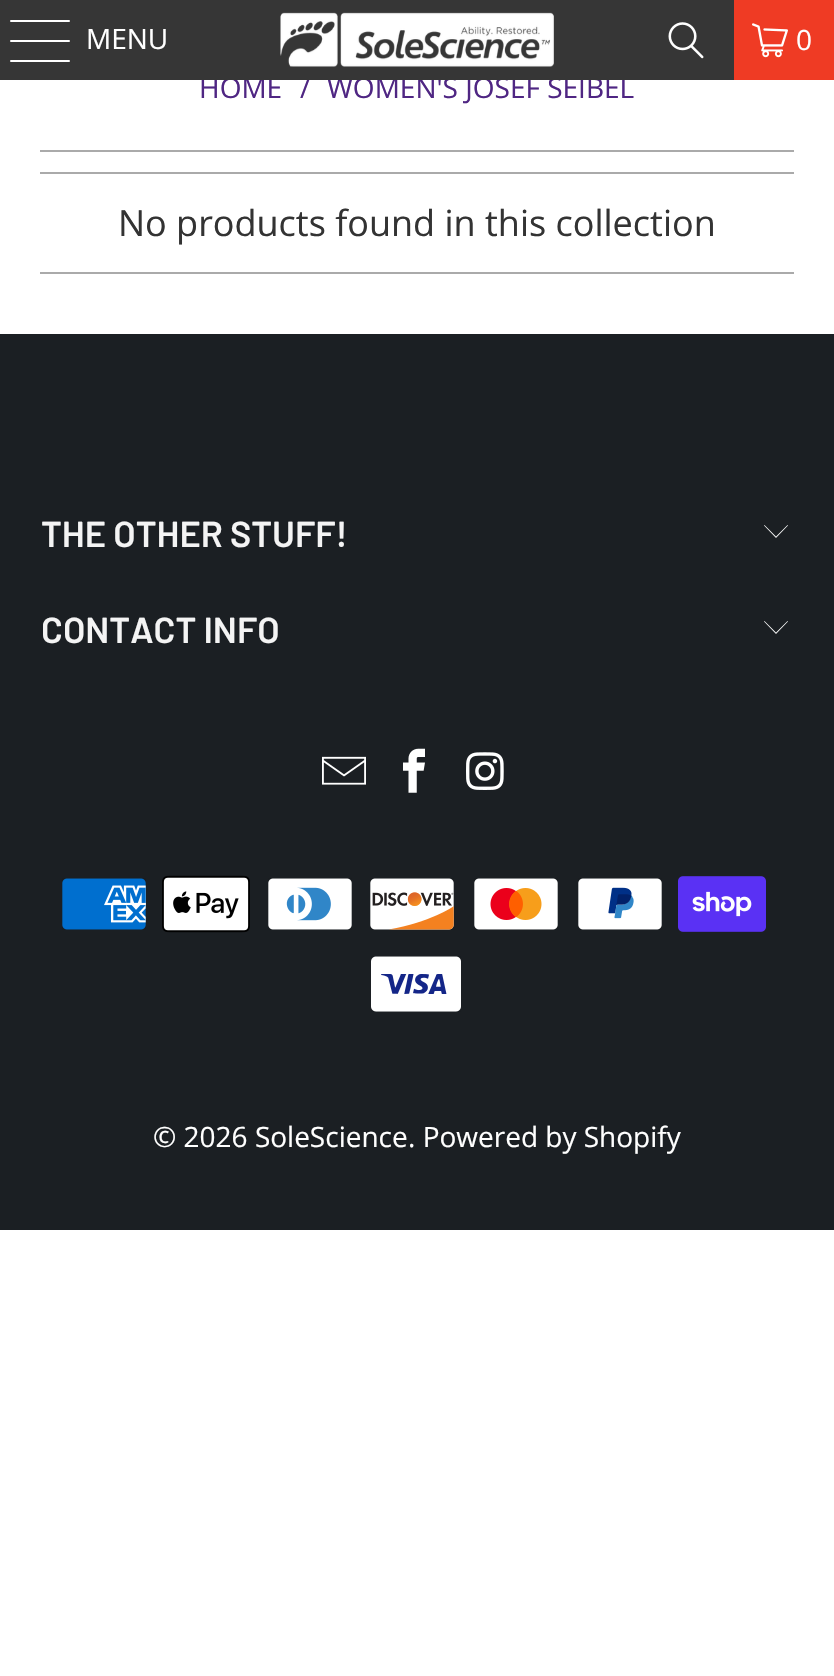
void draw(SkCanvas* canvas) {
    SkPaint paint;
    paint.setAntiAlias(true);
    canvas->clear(0xFFFFFFFF);
    SkFont font1(fontMgr->matchFamilyStyle("Open Sans", SkFontStyle::Normal()), 28);
    font1.setSubpixel(true);
    paint.setColor(0xFF4F2683);
    canvas->drawString("HOME", 199, 98, font1, paint);
    canvas->drawString("/", 300, 98, font1, paint);
    canvas->drawString("WOMEN'S JOSEF SEIBEL", 327, 98, font1, paint);
    paint.setColor(0xFF363636);
    canvas->drawRect(SkRect::MakeXYWH(0, 0, 734, 80), paint);
    paint.setColor(0xFFFFFFFF);
    canvas->drawRoundRect(SkRect::MakeXYWH(10, 20, 60, 2), 1, 1, paint);
    canvas->drawRoundRect(SkRect::MakeXYWH(10, 40, 60, 2), 1, 1, paint);
    canvas->drawRoundRect(SkRect::MakeXYWH(10, 60, 60, 2), 1, 1, paint);
    canvas->drawString("MENU", 86, 49, font1, paint);
    canvas->drawImageRect(SkImages::DeferredFromEncodedData(SkData::MakeFromFileName("img1.png")), SkRect::MakeXYWH(280, 12, 274, 55), SkSamplingOptions());
    canvas->drawImageRect(SkImages::DeferredFromEncodedData(SkData::MakeFromFileName("img2.png")), SkRect::MakeXYWH(668, 22, 36, 37), SkSamplingOptions());
    paint.setColor(0xFFEF3B24);
    canvas->drawRect(SkRect::MakeXYWH(734, 0, 100, 80), paint);
    canvas->drawImageRect(SkImages::DeferredFromEncodedData(SkData::MakeFromFileName("img3.png")), SkRect::MakeXYWH(752, 23, 36, 35), SkSamplingOptions());
    paint.setColor(0xFFFFFFFF);
    canvas->drawString("0", 796, 50, font1, paint);
    paint.setColor(0xFFAAAAAA);
    canvas->drawRect(SkRect::MakeXYWH(40, 150, 754, 2), paint);
    canvas->drawRect(SkRect::MakeXYWH(40, 172, 754, 2), paint);
    canvas->drawRect(SkRect::MakeXYWH(40, 272, 754, 2), paint);
    SkFont font2(fontMgr->matchFamilyStyle("Open Sans", SkFontStyle::Normal()), 36);
    font2.setSubpixel(true);
    paint.setColor(0xFF333333);
    canvas->drawString("No products found in this collection", 118, 236, font2, paint);
    paint.setColor(0xFF1B1F23);
    canvas->drawRect(SkRect::MakeXYWH(0, 334, 834, 896), paint);
    SkFont font3(fontMgr->matchFamilyStyle("Barlow", SkFontStyle(600, SkFontStyle::kNormal_Width, SkFontStyle::kUpright_Slant)), 36);
    font3.setSubpixel(true);
    paint.setColor(0xFFF4F4F4);
    canvas->drawString("THE OTHER STUFF!", 41, 547, font3, paint);
    canvas->drawPath(SkPathBuilder().moveTo(776, 538).lineTo(764, 525.5f).lineTo(764.5f, 525).lineTo(776, 536.5f).lineTo(787.5f, 525).lineTo(788, 525.5f).close().detach(), paint);
    canvas->drawString("CONTACT INFO", 41, 643, font3, paint);
    canvas->drawPath(SkPathBuilder().moveTo(776, 634).lineTo(764, 621.5f).lineTo(764.5f, 621).lineTo(776, 632.5f).lineTo(787.5f, 621).lineTo(788, 621.5f).close().detach(), paint);
    canvas->drawImageRect(SkImages::DeferredFromEncodedData(SkData::MakeFromFileName("img4.png")), SkRect::MakeXYWH(322, 756, 44, 29), SkSamplingOptions());
    canvas->drawImageRect(SkImages::DeferredFromEncodedData(SkData::MakeFromFileName("img5.png")), SkRect::MakeXYWH(403, 748, 22, 45), SkSamplingOptions());
    canvas->drawImageRect(SkImages::DeferredFromEncodedData(SkData::MakeFromFileName("img6.png")), SkRect::MakeXYWH(466, 752, 38, 38), SkSamplingOptions());
    canvas->drawImageRect(SkImages::DeferredFromEncodedData(SkData::MakeFromFileName("img7.png")), SkRect::MakeXYWH(62, 878, 84, 52), SkSamplingOptions());
    canvas->drawImageRect(SkImages::DeferredFromEncodedData(SkData::MakeFromFileName("img8.png")), SkRect::MakeXYWH(162, 875, 88, 58), SkSamplingOptions());
    canvas->drawImageRect(SkImages::DeferredFromEncodedData(SkData::MakeFromFileName("img9.png")), SkRect::MakeXYWH(268, 878, 84, 52), SkSamplingOptions());
    canvas->drawImageRect(SkImages::DeferredFromEncodedData(SkData::MakeFromFileName("img10.png")), SkRect::MakeXYWH(370, 878, 84, 52), SkSamplingOptions());
    canvas->drawImageRect(SkImages::DeferredFromEncodedData(SkData::MakeFromFileName("img11.png")), SkRect::MakeXYWH(474, 878, 84, 52), SkSamplingOptions());
    canvas->drawImageRect(SkImages::DeferredFromEncodedData(SkData::MakeFromFileName("img12.png")), SkRect::MakeXYWH(578, 878, 84, 52), SkSamplingOptions());
    canvas->drawImageRect(SkImages::DeferredFromEncodedData(SkData::MakeFromFileName("img13.png")), SkRect::MakeXYWH(678, 876, 88, 56), SkSamplingOptions());
    canvas->drawImageRect(SkImages::DeferredFromEncodedData(SkData::MakeFromFileName("img14.png")), SkRect::MakeXYWH(371, 956, 90, 56), SkSamplingOptions());
    paint.setColor(0xFFFFFFFF);
    canvas->drawString("© 2026 SoleScience", 153, 1147, font1, paint);
    canvas->drawString(". Powered by Shopify", 408, 1147, font1, paint);
}
